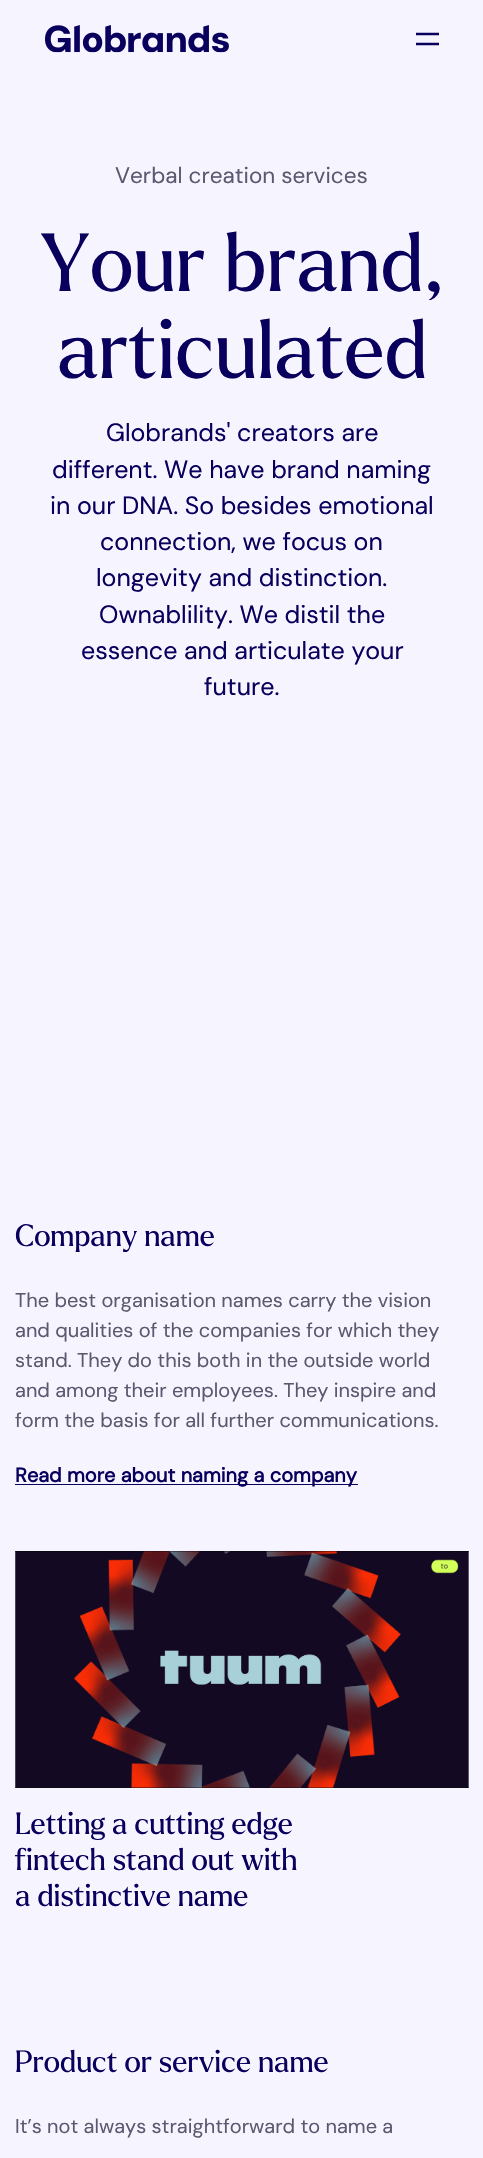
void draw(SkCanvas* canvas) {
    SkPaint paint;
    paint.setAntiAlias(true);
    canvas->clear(0xFFF6F4FF);
    canvas->drawImageRect(SkImages::DeferredFromEncodedData(SkData::MakeFromFileName("img1.png")), SkRect::MakeXYWH(45, 25, 184, 28), SkSamplingOptions());
    paint.setStyle(SkPaint::kStroke_Style);
    paint.setStrokeWidth(2.5f);
    paint.setColor(0xFF09005E);
    canvas->drawPath(SkPathBuilder().moveTo(416, 34).lineTo(439, 34).moveTo(416, 44).lineTo(439, 44).detach(), paint);
    SkFont font1(fontMgr->matchFamilyStyle("DM Sans", SkFontStyle::Normal()), 22.5f);
    font1.setSubpixel(true);
    paint.setStyle(SkPaint::kFill_Style);
    paint.setColor(0xFF5B596F);
    canvas->drawString("Verbal creation services", 115, 183, font1, paint);
    SkFont font2(fontMgr->matchFamilyStyle("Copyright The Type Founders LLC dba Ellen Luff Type", SkFontStyle::Normal()), 80);
    font2.setSubpixel(true);
    paint.setColor(0xFF09005E);
    canvas->drawString("Your brand,", 40, 291, font2, paint);
    canvas->drawString("articulated", 57, 378, font2, paint);
    SkFont font3(fontMgr->matchFamilyStyle("DM Sans", SkFontStyle::Normal()), 25);
    font3.setSubpixel(true);
    canvas->drawString("Globrands' creators are", 106, 441, font3, paint);
    canvas->drawString("different. We have brand naming", 52, 478, font3, paint);
    canvas->drawString("in our DNA. So besides emotional", 50, 514, font3, paint);
    canvas->drawString("connection, we focus on", 100, 550, font3, paint);
    canvas->drawString("longevity and distinction.", 96, 586, font3, paint);
    canvas->drawString("Ownablility. We distil the", 99, 623, font3, paint);
    canvas->drawString("essence and articulate your", 81, 659, font3, paint);
    canvas->drawString("future.", 204, 695, font3, paint);
    SkFont font4(fontMgr->matchFamilyStyle("Copyright The Type Founders LLC dba Ellen Luff Type", SkFontStyle::Normal()), 30);
    font4.setSubpixel(true);
    canvas->drawString("Company name", 15, 1246, font4, paint);
    SkFont font5(fontMgr->matchFamilyStyle("DM Sans", SkFontStyle::Normal()), 20);
    font5.setSubpixel(true);
    paint.setColor(0xFF5B596F);
    canvas->drawString("The best organisation names carry the vision", 15, 1307, font5, paint);
    canvas->drawString("and qualities of the companies for which they", 15, 1337, font5, paint);
    canvas->drawString("stand. They do this both in the outside world", 15, 1367, font5, paint);
    canvas->drawString("and among their employees. They inspire and", 15, 1397, font5, paint);
    canvas->drawString("form the basis for all further communications.", 15, 1427, font5, paint);
    paint.setColor(0xFF09005E);
    canvas->drawRect(SkRect::MakeXYWH(15, 1484, 343, 1), paint);
    SkFont font6(fontMgr->matchFamilyStyle("DM Sans", SkFontStyle::Bold()), 20);
    font6.setSubpixel(true);
    canvas->drawString("Read more about naming a company", 15, 1482, font6, paint);
    paint.setColor(0xFF000000);
    canvas->drawRect(SkRect::MakeXYWH(15, 1551, 454, 237), paint);
    canvas->drawImageRect(SkImages::DeferredFromEncodedData(SkData::MakeFromFileName("img2.png")), SkRect::MakeXYWH(15, 1551, 454, 237), SkSamplingOptions());
    paint.setColor(0xFF09005E);
    canvas->drawString("Letting a cutting edge", 15, 1834, font4, paint);
    canvas->drawString("fintech stand out with", 15, 1870, font4, paint);
    canvas->drawString("a distinctive name", 15, 1906, font4, paint);
    canvas->drawString("Product or service name", 15, 2072, font4, paint);
    paint.setColor(0xFF5B596F);
    canvas->drawString("It’s not always straightforward to name a", 15, 2133, font5, paint);
}
